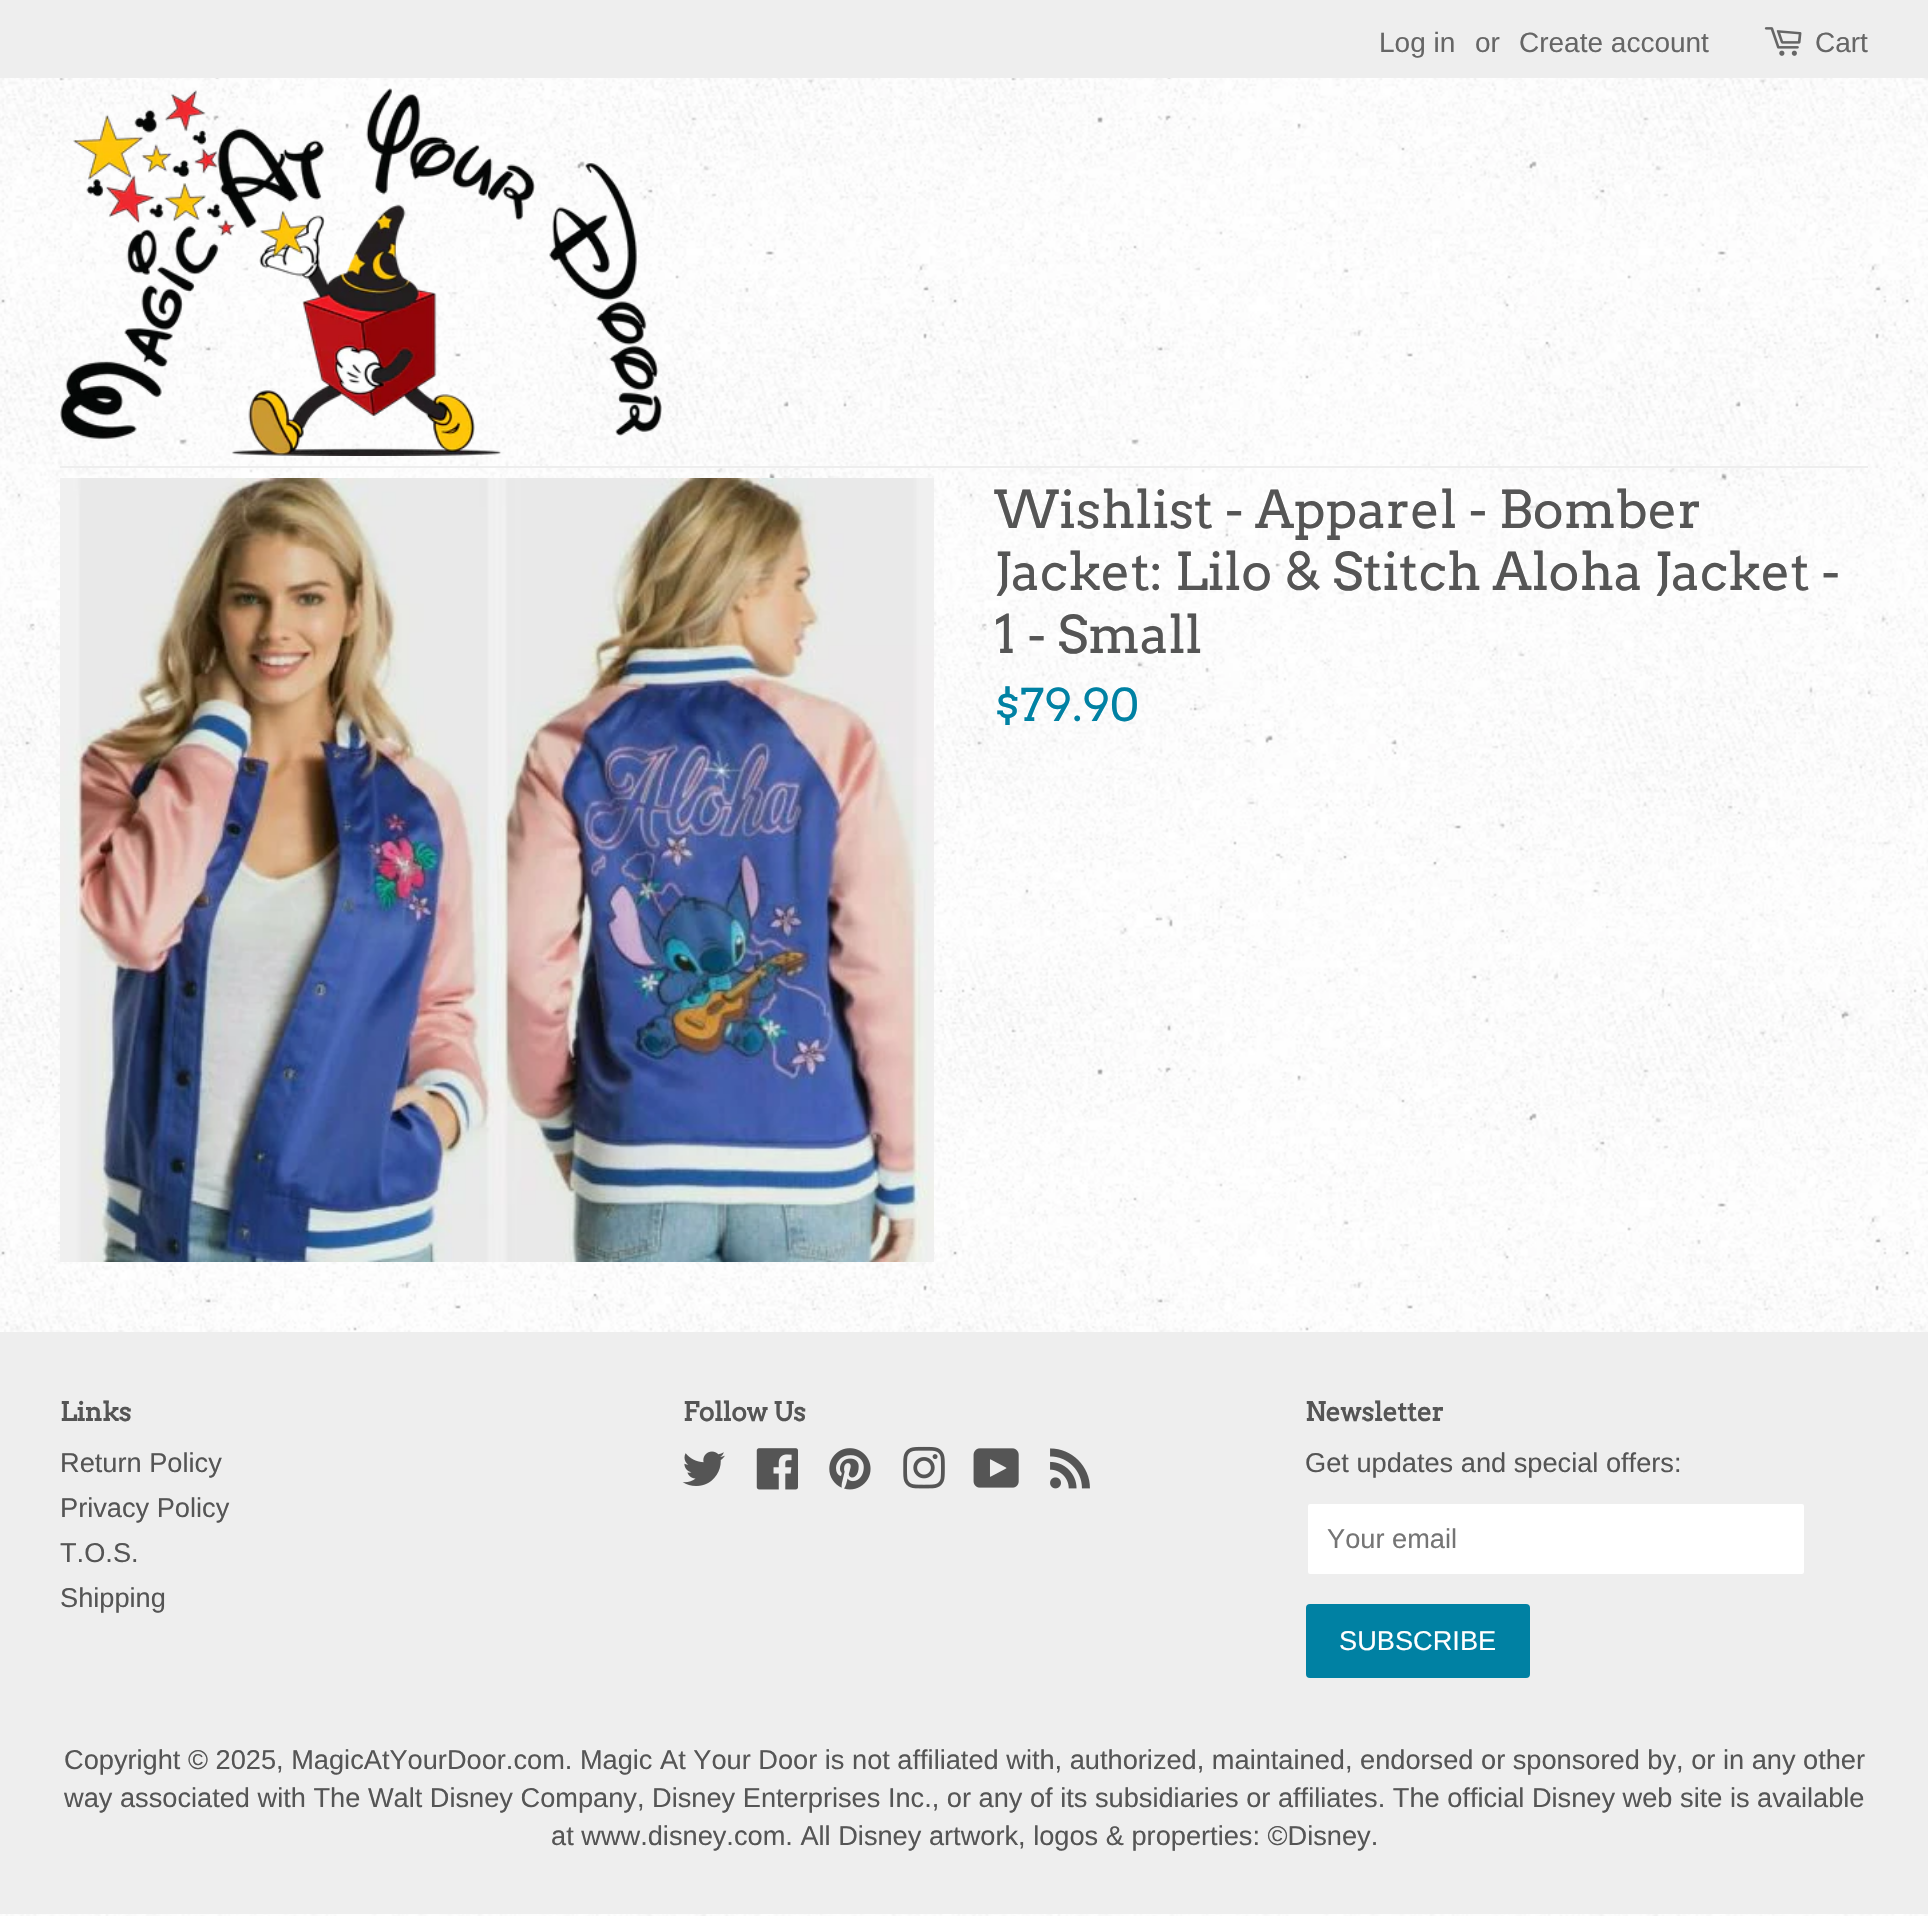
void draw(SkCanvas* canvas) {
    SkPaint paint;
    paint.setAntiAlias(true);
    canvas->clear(0xFFFFFFFF);
    canvas->drawImageRect(SkImages::DeferredFromEncodedData(SkData::MakeFromFileName("img1.png")), SkRect::MakeXYWH(0, 1914, 1928, 2), SkSamplingOptions());
    canvas->drawImageRect(SkImages::DeferredFromEncodedData(SkData::MakeFromFileName("img2.png")), SkRect::MakeXYWH(0, 78, 1928, 1254), SkSamplingOptions());
    paint.setColor(0xFFEEEEEE);
    canvas->drawRect(SkRect::MakeXYWH(0, 0, 1928, 78), paint);
    SkFont font1(fontMgr->matchFamilyStyle("Liberation Sans", SkFontStyle::Normal()), 28);
    font1.setSubpixel(true);
    paint.setColor(0xFF666666);
    canvas->drawString("Log in", 1379, 52, font1, paint);
    canvas->drawString("or", 1475, 52, font1, paint);
    canvas->drawString("Create account", 1519, 52, font1, paint);
    canvas->drawImageRect(SkImages::DeferredFromEncodedData(SkData::MakeFromFileName("img3.png")), SkRect::MakeXYWH(1764, 27, 38, 29), SkSamplingOptions());
    canvas->drawString("Cart", 1815, 52, font1, paint);
    paint.setColor(0xFFEEEEEE);
    canvas->drawRect(SkRect::MakeXYWH(60, 466, 1808, 2), paint);
    canvas->drawImageRect(SkImages::DeferredFromEncodedData(SkData::MakeFromFileName("img4.png")), SkRect::MakeXYWH(60, 88, 602, 368), SkSamplingOptions());
    canvas->drawImageRect(SkImages::DeferredFromEncodedData(SkData::MakeFromFileName("img5.png")), SkRect::MakeXYWH(60, 478, 874, 784), SkSamplingOptions());
    SkFont font2(fontMgr->matchFamilyStyle("Arvo", SkFontStyle::Normal()), 52);
    font2.setSubpixel(true);
    paint.setColor(0xFF555555);
    canvas->drawString("Wishlist - Apparel - Bomber", 994, 528, font2, paint);
    canvas->drawString("Jacket: Lilo & Stitch Aloha Jacket -", 994, 590, font2, paint);
    canvas->drawString("1 - Small", 994, 653, font2, paint);
    SkFont font3(fontMgr->matchFamilyStyle("Arvo", SkFontStyle::Normal()), 45);
    font3.setSubpixel(true);
    paint.setColor(0xFF0081A3);
    canvas->drawString("$79.90", 994, 721, font3, paint);
    paint.setColor(0xFFEEEEEE);
    canvas->drawRect(SkRect::MakeXYWH(0, 1332, 1928, 582), paint);
    SkFont font4(fontMgr->matchFamilyStyle("Arvo", SkFontStyle::Bold()), 26);
    font4.setSubpixel(true);
    paint.setColor(0xFF555555);
    canvas->drawString("Links", 60, 1421, font4, paint);
    SkFont font5(fontMgr->matchFamilyStyle("Liberation Sans", SkFontStyle::Normal()), 27.2f);
    font5.setSubpixel(true);
    canvas->drawString("Return Policy", 60, 1472, font5, paint);
    canvas->drawString("Privacy Policy", 60, 1517, font5, paint);
    canvas->drawString("T.O.S.", 60, 1562, font5, paint);
    canvas->drawString("Shipping", 60, 1607, font5, paint);
    canvas->drawString("Follow Us", 683, 1421, font4, paint);
    canvas->drawImageRect(SkImages::DeferredFromEncodedData(SkData::MakeFromFileName("img6.png")), SkRect::MakeXYWH(682, 1451, 43, 35), SkSamplingOptions());
    canvas->drawImageRect(SkImages::DeferredFromEncodedData(SkData::MakeFromFileName("img7.png")), SkRect::MakeXYWH(756, 1448, 42, 42), SkSamplingOptions());
    canvas->drawImageRect(SkImages::DeferredFromEncodedData(SkData::MakeFromFileName("img8.png")), SkRect::MakeXYWH(829, 1448, 42, 42), SkSamplingOptions());
    canvas->drawImageRect(SkImages::DeferredFromEncodedData(SkData::MakeFromFileName("img9.png")), SkRect::MakeXYWH(903, 1446, 42, 43), SkSamplingOptions());
    canvas->drawImageRect(SkImages::DeferredFromEncodedData(SkData::MakeFromFileName("img10.png")), SkRect::MakeXYWH(973, 1448, 46, 40), SkSamplingOptions());
    canvas->drawImageRect(SkImages::DeferredFromEncodedData(SkData::MakeFromFileName("img11.png")), SkRect::MakeXYWH(1050, 1448, 40, 41), SkSamplingOptions());
    canvas->drawString("Newsletter", 1305, 1421, font4, paint);
    canvas->drawString("Get updates and special offers:", 1305, 1472, font5, paint);
    paint.setColor(0xFFFFFFFF);
    canvas->drawRoundRect(SkRect::MakeXYWH(1307, 1503, 498, 72), 3, 3, paint);
    paint.setStyle(SkPaint::kStroke_Style);
    paint.setStrokeWidth(2);
    paint.setColor(0xFFEEEEEE);
    canvas->drawRoundRect(SkRect::MakeXYWH(1307, 1503, 498, 72), 3, 3, paint);
    paint.setStyle(SkPaint::kFill_Style);
    paint.setColor(0xFF757575);
    canvas->drawString("Your email", 1327, 1548, font5, paint);
    paint.setColor(0xFF0081A3);
    canvas->drawRoundRect(SkRect::MakeXYWH(1306, 1604, 224, 74), 4, 4, paint);
    paint.setColor(0xFFFFFFFF);
    canvas->drawString("SUBSCRIBE", 1339, 1650, font5, paint);
    paint.setColor(0xFF555555);
    canvas->drawString("Copyright © 2025, MagicAtYourDoor.com. Magic At Your Door is not affiliated with, authorized, maintained, endorsed or sponsored by, or in any other", 64, 1769, font5, paint);
    canvas->drawString("way associated with The Walt Disney Company, Disney Enterprises Inc., or any of its subsidiaries or affiliates. The official Disney web site is available", 64, 1807, font5, paint);
    canvas->drawString("at www.disney.com. All Disney artwork, logos & properties: ©Disney.", 551, 1845, font5, paint);
}
